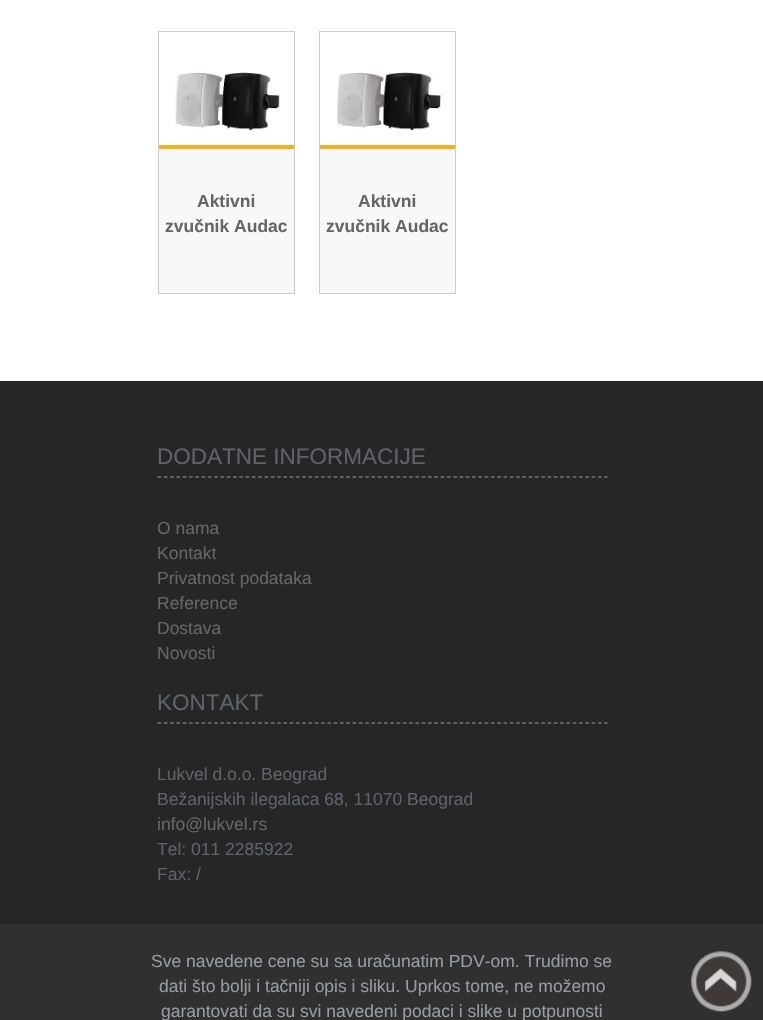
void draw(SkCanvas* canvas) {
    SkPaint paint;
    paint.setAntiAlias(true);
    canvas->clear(0xFFFFFFFF);
    paint.setStyle(SkPaint::kStroke_Style);
    paint.setStrokeWidth(1);
    paint.setColor(0xFFCCCCCC);
    canvas->drawRect(SkRect::MakeXYWH(158.5f, 31.5f, 136, 262), paint);
    canvas->drawImageRect(SkImages::DeferredFromEncodedData(SkData::MakeFromFileName("img1.png")), SkRect::MakeXYWH(175, 72, 105, 60), SkSamplingOptions());
    paint.setStyle(SkPaint::kFill_Style);
    paint.setColor(0xFFF8F8F8);
    canvas->drawRect(SkRect::MakeXYWH(159, 149, 135, 144), paint);
    paint.setColor(0xFFF7AE21);
    canvas->drawRect(SkRect::MakeXYWH(159, 145, 135, 4), paint);
    SkFont font1(fontMgr->matchFamilyStyle("Liberation Sans", SkFontStyle::Bold()), 17.5f);
    font1.setSubpixel(true);
    paint.setColor(0xFF666666);
    canvas->drawString("Aktivni", 197, 207, font1, paint);
    canvas->drawString("zvučnik Audac", 165, 232, font1, paint);
    paint.setStyle(SkPaint::kStroke_Style);
    paint.setColor(0xFFCCCCCC);
    canvas->drawRect(SkRect::MakeXYWH(319.5f, 31.5f, 136, 262), paint);
    canvas->drawImageRect(SkImages::DeferredFromEncodedData(SkData::MakeFromFileName("img2.png")), SkRect::MakeXYWH(337, 72, 104, 60), SkSamplingOptions());
    paint.setStyle(SkPaint::kFill_Style);
    paint.setColor(0xFFF8F8F8);
    canvas->drawRect(SkRect::MakeXYWH(320, 149, 135, 144), paint);
    paint.setColor(0xFFF7AE21);
    canvas->drawRect(SkRect::MakeXYWH(320, 145, 135, 4), paint);
    paint.setColor(0xFF666666);
    canvas->drawString("Aktivni", 358, 207, font1, paint);
    canvas->drawString("zvučnik Audac", 326, 232, font1, paint);
    paint.setColor(0xFF262626);
    canvas->drawRect(SkRect::MakeXYWH(0, 381, 763, 543), paint);
    paint.setStyle(SkPaint::kStroke_Style);
    paint.setStrokeWidth(1.2f);
    paint.setColor(0xFF999999);
    paint.setPathEffect(SkDashPathEffect::Make({{3.75f, 2.54f}}, 0));
    canvas->drawPath(SkPathBuilder().moveTo(157.5f, 477).lineTo(607.5f, 477).detach(), paint);
    paint.setPathEffect(nullptr);
    SkFont font2(fontMgr->matchFamilyStyle("Liberation Sans", SkFontStyle::Normal()), 22.5f);
    font2.setSubpixel(true);
    paint.setStyle(SkPaint::kFill_Style);
    paint.setColor(0xFF5E626B);
    canvas->drawString("DODATNE INFORMACIJE", 157, 464, font2, paint);
    SkFont font3(fontMgr->matchFamilyStyle("Liberation Sans", SkFontStyle::Normal()), 17.5f);
    font3.setSubpixel(true);
    paint.setColor(0xFF666666);
    canvas->drawString("O nama", 157, 534, font3, paint);
    canvas->drawString("Kontakt", 157, 559, font3, paint);
    canvas->drawString("Privatnost podataka", 157, 584, font3, paint);
    canvas->drawString("Reference", 157, 609, font3, paint);
    canvas->drawString("Dostava", 157, 634, font3, paint);
    canvas->drawString("Novosti", 157, 659, font3, paint);
    paint.setStyle(SkPaint::kStroke_Style);
    paint.setColor(0xFF999999);
    paint.setPathEffect(SkDashPathEffect::Make({{3.75f, 2.54f}}, 0));
    canvas->drawPath(SkPathBuilder().moveTo(157.5f, 723).lineTo(607.5f, 723).detach(), paint);
    paint.setPathEffect(nullptr);
    paint.setStyle(SkPaint::kFill_Style);
    paint.setColor(0xFF5E626B);
    canvas->drawString("KONTAKT", 157, 710, font2, paint);
    canvas->drawString("Lukvel d.o.o. Beograd", 157, 780, font3, paint);
    canvas->drawString("Bežanijskih ilegalaca 68, 11070 Beograd", 157, 805, font3, paint);
    paint.setColor(0xFF666666);
    canvas->drawString("info@lukvel.rs", 157, 830, font3, paint);
    paint.setColor(0xFF5E626B);
    canvas->drawString("Tel: 011 2285922", 157, 855, font3, paint);
    canvas->drawString("Fax: /", 157, 880, font3, paint);
    paint.setColor(0xFF303030);
    canvas->drawRect(SkRect::MakeXYWH(0, 924, 763, 96), paint);
    paint.setColor(0xFF969BA4);
    canvas->drawString("Sve navedene cene su sa uračunatim PDV-om. Trudimo se", 151, 967, font3, paint);
    canvas->drawString("dati što bolji i tačniji opis i sliku. Uprkos tome, ne možemo", 159, 992, font3, paint);
    canvas->drawString("garantovati da su svi navedeni podaci i slike u potpunosti", 161, 1017, font3, paint);
    canvas->drawImageRect(SkImages::DeferredFromEncodedData(SkData::MakeFromFileName("img3.png")), SkRect::MakeXYWH(691, 951, 61, 61), SkSamplingOptions());
}
